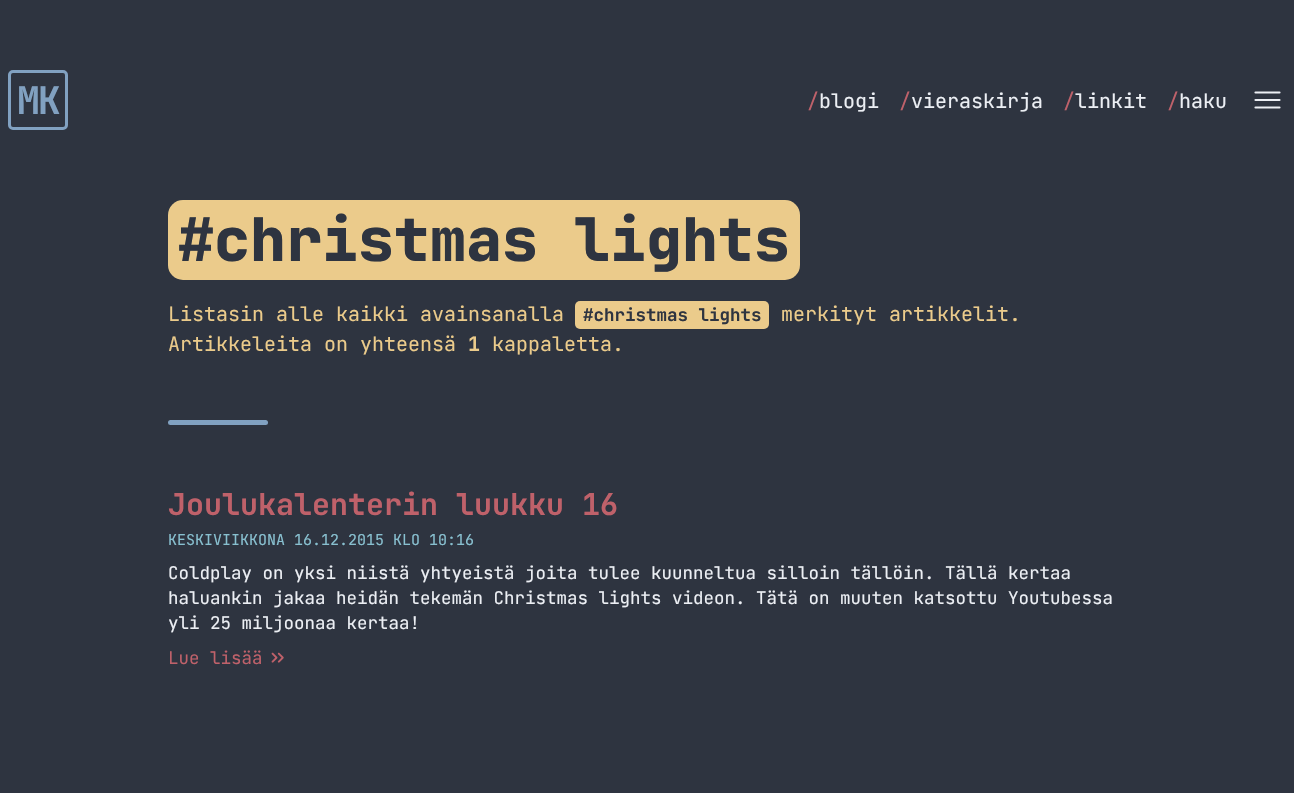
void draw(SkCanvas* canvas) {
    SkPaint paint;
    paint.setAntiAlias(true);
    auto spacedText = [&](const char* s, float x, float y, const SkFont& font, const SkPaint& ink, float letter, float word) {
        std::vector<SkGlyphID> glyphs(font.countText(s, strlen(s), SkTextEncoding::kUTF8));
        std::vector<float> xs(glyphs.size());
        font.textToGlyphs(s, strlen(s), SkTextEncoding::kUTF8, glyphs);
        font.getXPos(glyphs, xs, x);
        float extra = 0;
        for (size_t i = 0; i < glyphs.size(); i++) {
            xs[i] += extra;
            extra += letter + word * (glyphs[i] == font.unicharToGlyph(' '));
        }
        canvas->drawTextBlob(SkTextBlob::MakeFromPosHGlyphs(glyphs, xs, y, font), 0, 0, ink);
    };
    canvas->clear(0xFF2E3440);
    paint.setStyle(SkPaint::kStroke_Style);
    paint.setStrokeWidth(3);
    paint.setColor(0xFF81A1C1);
    canvas->drawRoundRect(SkRect::MakeXYWH(9.5f, 71.5f, 57, 57), 3.5f, 3.5f, paint);
    SkFont font1(fontMgr->matchFamilyStyle("JetBrains Mono", SkFontStyle::Bold()), 38);
    font1.setSubpixel(true);
    paint.setStyle(SkPaint::kFill_Style);
    spacedText("MK", 17, 114, font1, paint, -2, 0);
    SkFont font2(fontMgr->matchFamilyStyle("JetBrains Mono", SkFontStyle::Normal()), 20);
    font2.setSubpixel(true);
    paint.setColor(0xFFBF616A);
    canvas->drawString("/", 807, 108, font2, paint);
    paint.setColor(0xFFECEFF4);
    canvas->drawString("blogi", 819, 108, font2, paint);
    paint.setColor(0xFFBF616A);
    canvas->drawString("/", 899, 108, font2, paint);
    paint.setColor(0xFFECEFF4);
    canvas->drawString("vieraskirja", 911, 108, font2, paint);
    paint.setColor(0xFFBF616A);
    canvas->drawString("/", 1063, 108, font2, paint);
    paint.setColor(0xFFECEFF4);
    canvas->drawString("linkit", 1075, 108, font2, paint);
    paint.setColor(0xFFBF616A);
    canvas->drawString("/", 1167, 108, font2, paint);
    paint.setColor(0xFFECEFF4);
    canvas->drawString("haku", 1179, 108, font2, paint);
    paint.setStyle(SkPaint::kStroke_Style);
    paint.setStrokeWidth(2.2f);
    paint.setStrokeCap(SkPaint::kRound_Cap);
    paint.setStrokeJoin(SkPaint::kRound_Join);
    canvas->drawPath(SkPathBuilder().moveTo(1255.5f, 92.5f).lineTo(1279.5f, 92.5f).moveTo(1255.5f, 100).lineTo(1279.5f, 100).moveTo(1255.5f, 107.5f).lineTo(1279.5f, 107.5f).detach(), paint);
    paint.setStyle(SkPaint::kFill_Style);
    paint.setColor(0xFFEBCB8B);
    canvas->drawRoundRect(SkRect::MakeXYWH(168, 200, 632, 80), 15, 15, paint);
    SkFont font3(fontMgr->matchFamilyStyle("JetBrains Mono", SkFontStyle(800, SkFontStyle::kNormal_Width, SkFontStyle::kUpright_Slant)), 60);
    font3.setSubpixel(true);
    paint.setColor(0xFF2E3440);
    canvas->drawString("#christmas lights", 178, 261, font3, paint);
    paint.setColor(0xFFEBCB8B);
    canvas->drawString("Listasin alle kaikki avainsanalla", 168, 321, font2, paint);
    canvas->drawRoundRect(SkRect::MakeXYWH(575, 301, 194, 28), 5, 5, paint);
    SkFont font4(fontMgr->matchFamilyStyle("JetBrains Mono", SkFontStyle::Bold()), 17.5f);
    font4.setSubpixel(true);
    paint.setColor(0xFF2E3440);
    canvas->drawString("#christmas lights", 583, 321, font4, paint);
    paint.setColor(0xFFEBCB8B);
    canvas->drawString("merkityt artikkelit.", 781, 321, font2, paint);
    canvas->drawString("Artikkeleita on yhteensä", 168, 351, font2, paint);
    SkFont font5(fontMgr->matchFamilyStyle("JetBrains Mono", SkFontStyle::Bold()), 20);
    font5.setSubpixel(true);
    canvas->drawString("1", 468, 351, font5, paint);
    canvas->drawString("kappaletta.", 492, 351, font2, paint);
    paint.setColor(0xFF81A1C1);
    canvas->drawRoundRect(SkRect::MakeXYWH(168, 420, 100, 5), 2.5f, 2.5f, paint);
    SkFont font6(fontMgr->matchFamilyStyle("JetBrains Mono", SkFontStyle::Bold()), 30);
    font6.setSubpixel(true);
    paint.setColor(0xFFBF616A);
    canvas->drawString("Joulukalenterin luukku 16", 168, 515, font6, paint);
    SkFont font7(fontMgr->matchFamilyStyle("JetBrains Mono", SkFontStyle::Normal()), 15);
    font7.setSubpixel(true);
    paint.setColor(0xFF88C0D0);
    canvas->drawString("KESKIVIIKKONA 16.12.2015 KLO 10:16", 168, 545, font7, paint);
    SkFont font8(fontMgr->matchFamilyStyle("JetBrains Mono", SkFontStyle::Normal()), 17.5f);
    font8.setSubpixel(true);
    paint.setColor(0xFFECEFF4);
    canvas->drawString("Coldplay on yksi niistä yhtyeistä joita tulee kuunneltua silloin tällöin. Tällä kertaa", 168, 579, font8, paint);
    canvas->drawString("haluankin jakaa heidän tekemän Christmas lights videon. Tätä on muuten katsottu Youtubessa", 168, 604, font8, paint);
    canvas->drawString("yli 25 miljoonaa kertaa!", 168, 629, font8, paint);
    paint.setColor(0xFFBF616A);
    canvas->drawString("Lue lisää", 168, 664, font8, paint);
    canvas->drawImageRect(SkImages::DeferredFromEncodedData(SkData::MakeFromFileName("img1.png")), SkRect::MakeXYWH(271, 652, 13, 11), SkSamplingOptions());
}
